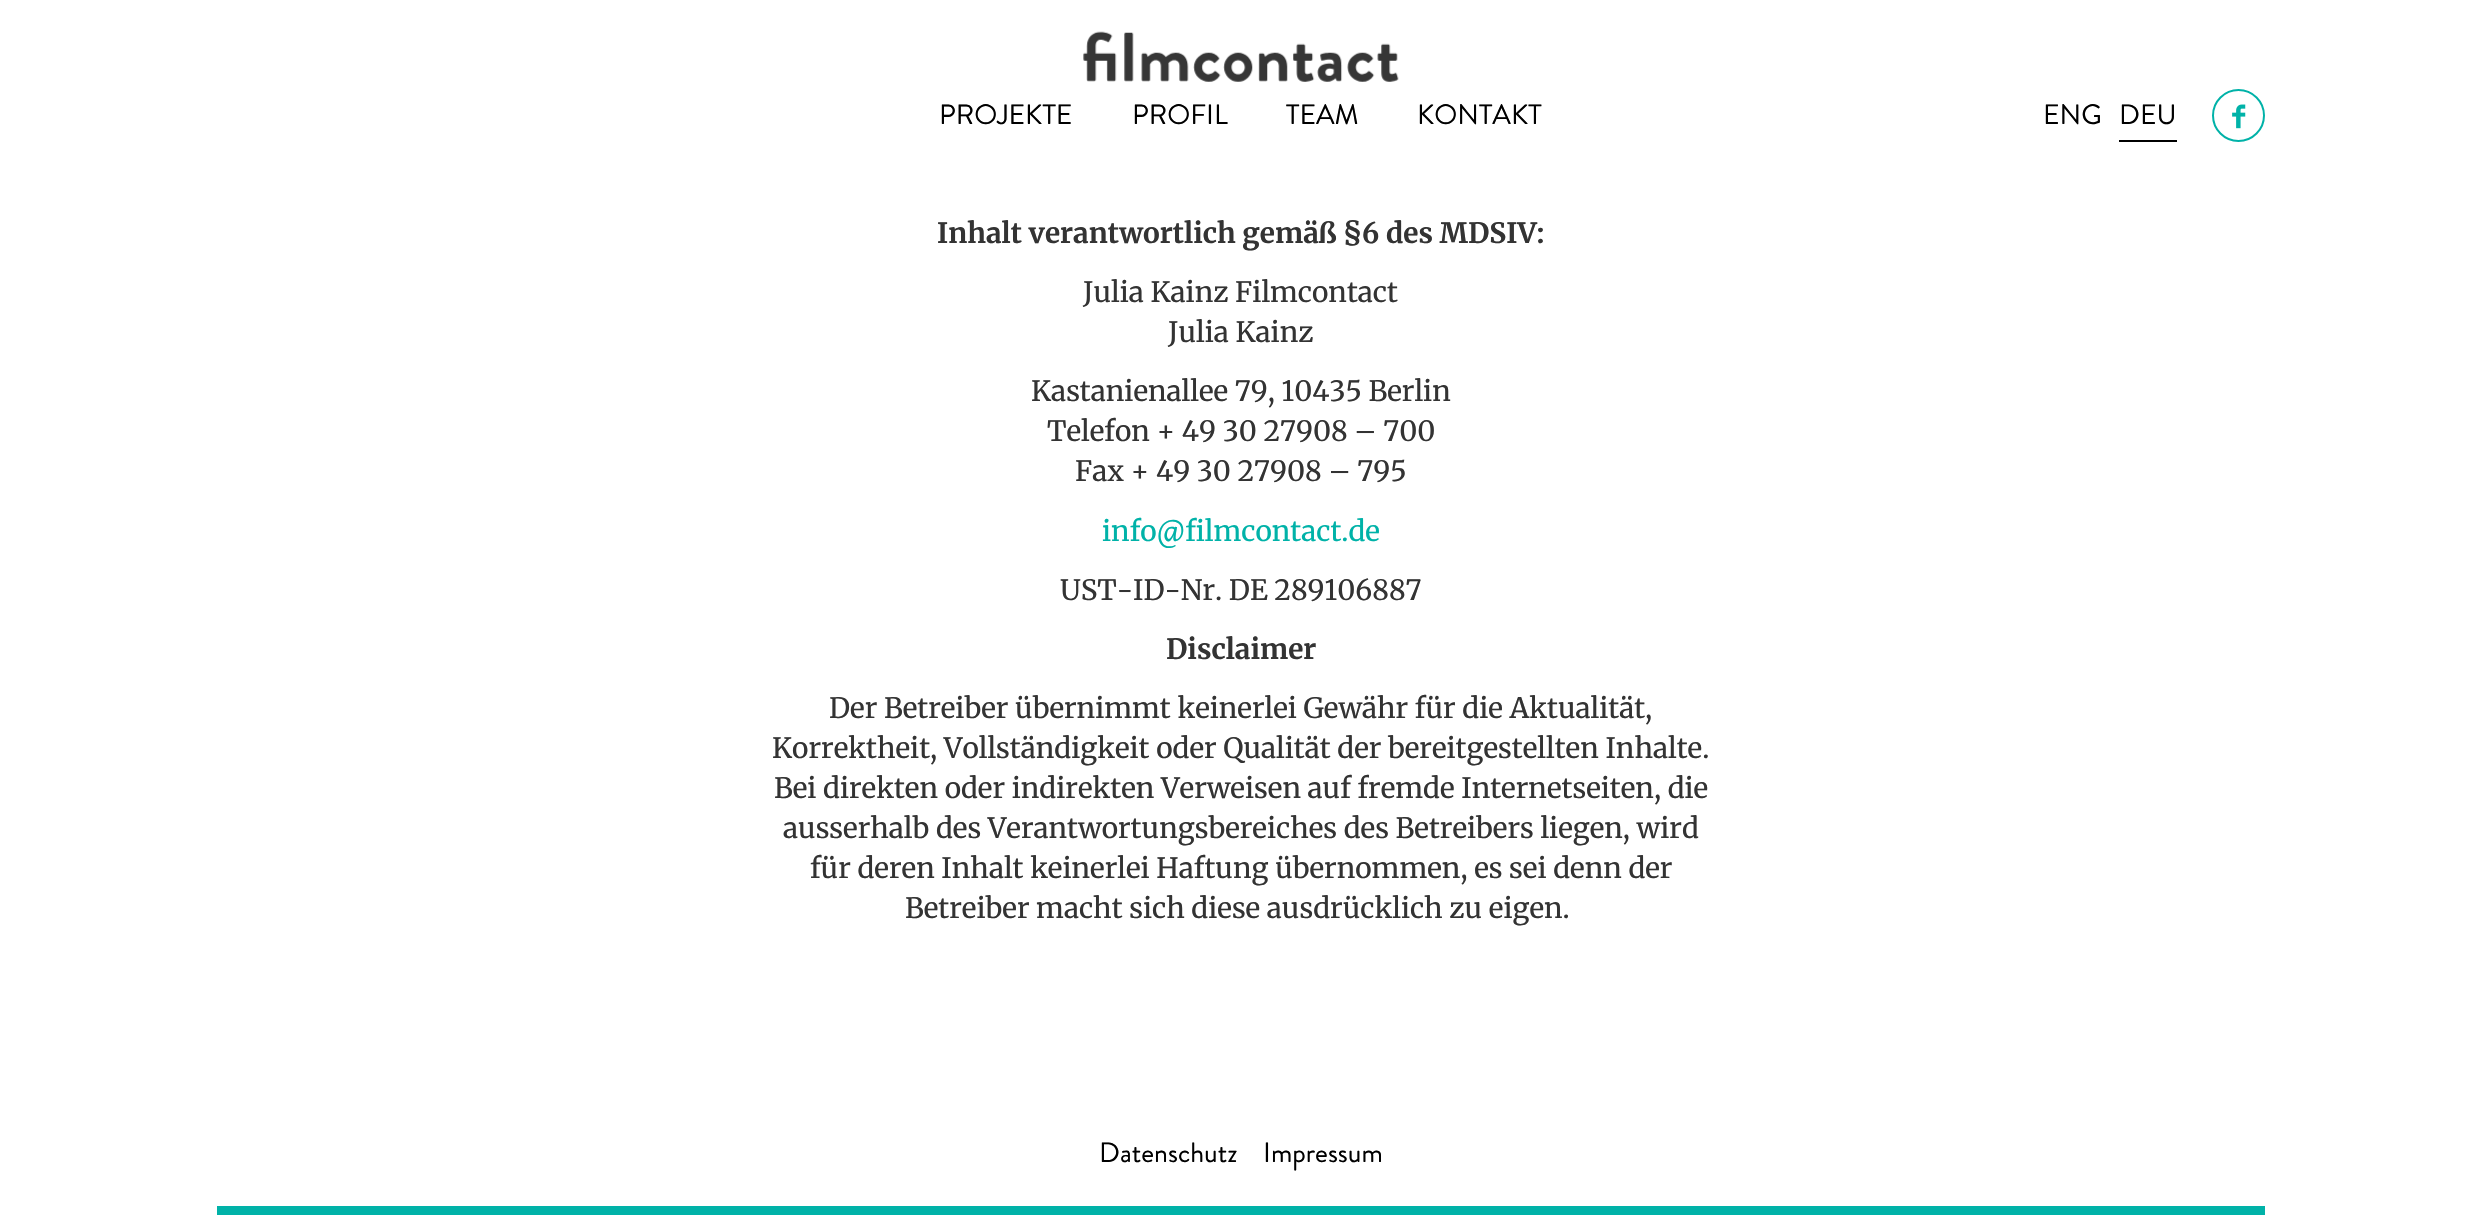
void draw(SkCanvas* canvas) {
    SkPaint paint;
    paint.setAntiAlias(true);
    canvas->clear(0xFFFFFFFF);
    canvas->drawImageRect(SkImages::DeferredFromEncodedData(SkData::MakeFromFileName("img1.png")), SkRect::MakeXYWH(1083, 31, 316, 51), SkSamplingOptions());
    SkFont font1(fontMgr->matchFamilyStyle("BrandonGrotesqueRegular", SkFontStyle::Normal()), 28);
    font1.setSubpixel(true);
    paint.setColor(0xFF000000);
    canvas->drawString("PROJEKTE", 939, 124, font1, paint);
    canvas->drawString("PROFIL", 1132, 124, font1, paint);
    canvas->drawString("TEAM", 1286, 124, font1, paint);
    canvas->drawString("KONTAKT", 1417, 124, font1, paint);
    canvas->drawString("ENG", 2043, 124, font1, paint);
    canvas->drawRect(SkRect::MakeXYWH(2119, 140, 58, 2), paint);
    canvas->drawString("DEU", 2119, 124, font1, paint);
    paint.setStyle(SkPaint::kStroke_Style);
    paint.setStrokeWidth(2);
    paint.setColor(0xFF00B2A8);
    canvas->drawCircle(2238.5f, 115.5f, 25.5f, paint);
    canvas->drawImageRect(SkImages::DeferredFromEncodedData(SkData::MakeFromFileName("img2.png")), SkRect::MakeXYWH(2232, 104, 14, 25), SkSamplingOptions());
    SkFont font2(fontMgr->matchFamilyStyle("Merriweather", SkFontStyle::Bold()), 28);
    font2.setSubpixel(true);
    paint.setStyle(SkPaint::kFill_Style);
    paint.setColor(0xFF333333);
    canvas->drawString("Inhalt verantwortlich gemäß §6 des MDSIV:", 937, 243, font2, paint);
    SkFont font3(fontMgr->matchFamilyStyle("Merriweather", SkFontStyle::Normal()), 28);
    font3.setSubpixel(true);
    canvas->drawString("Julia Kainz Filmcontact", 1083, 302, font3, paint);
    canvas->drawString("Julia Kainz", 1168, 342, font3, paint);
    canvas->drawString("Kastanienallee 79, 10435 Berlin", 1031, 401, font3, paint);
    canvas->drawString("Telefon + 49 30 27908 – 700", 1047, 441, font3, paint);
    canvas->drawString("Fax + 49 30 27908 – 795", 1075, 481, font3, paint);
    paint.setColor(0xFF00B2A8);
    canvas->drawString("info@filmcontact.de", 1102, 541, font3, paint);
    paint.setColor(0xFF333333);
    canvas->drawString("UST-ID-Nr. DE 289106887", 1060, 600, font3, paint);
    canvas->drawString("Disclaimer", 1166, 659, font2, paint);
    canvas->drawString("Der Betreiber übernimmt keinerlei Gewähr für die Aktualität,", 829, 718, font3, paint);
    canvas->drawString("Korrektheit, Vollständigkeit oder Qualität der bereitgestellten Inhalte.", 772, 758, font3, paint);
    canvas->drawString("Bei direkten oder indirekten Verweisen auf fremde Internetseiten, die", 774, 798, font3, paint);
    canvas->drawString("ausserhalb des Verantwortungsbereiches des Betreibers liegen, wird", 783, 838, font3, paint);
    canvas->drawString("für deren Inhalt keinerlei Haftung übernommen, es sei denn der", 810, 878, font3, paint);
    canvas->drawString("Betreiber macht sich diese ausdrücklich zu eigen.", 905, 918, font3, paint);
    paint.setColor(0xFF00B2A8);
    canvas->drawRect(SkRect::MakeXYWH(217, 1206, 2048, 9), paint);
    paint.setColor(0xFF000000);
    canvas->drawString("Datenschutz", 1099, 1162, font1, paint);
    canvas->drawString("Impressum", 1263, 1162, font1, paint);
}
